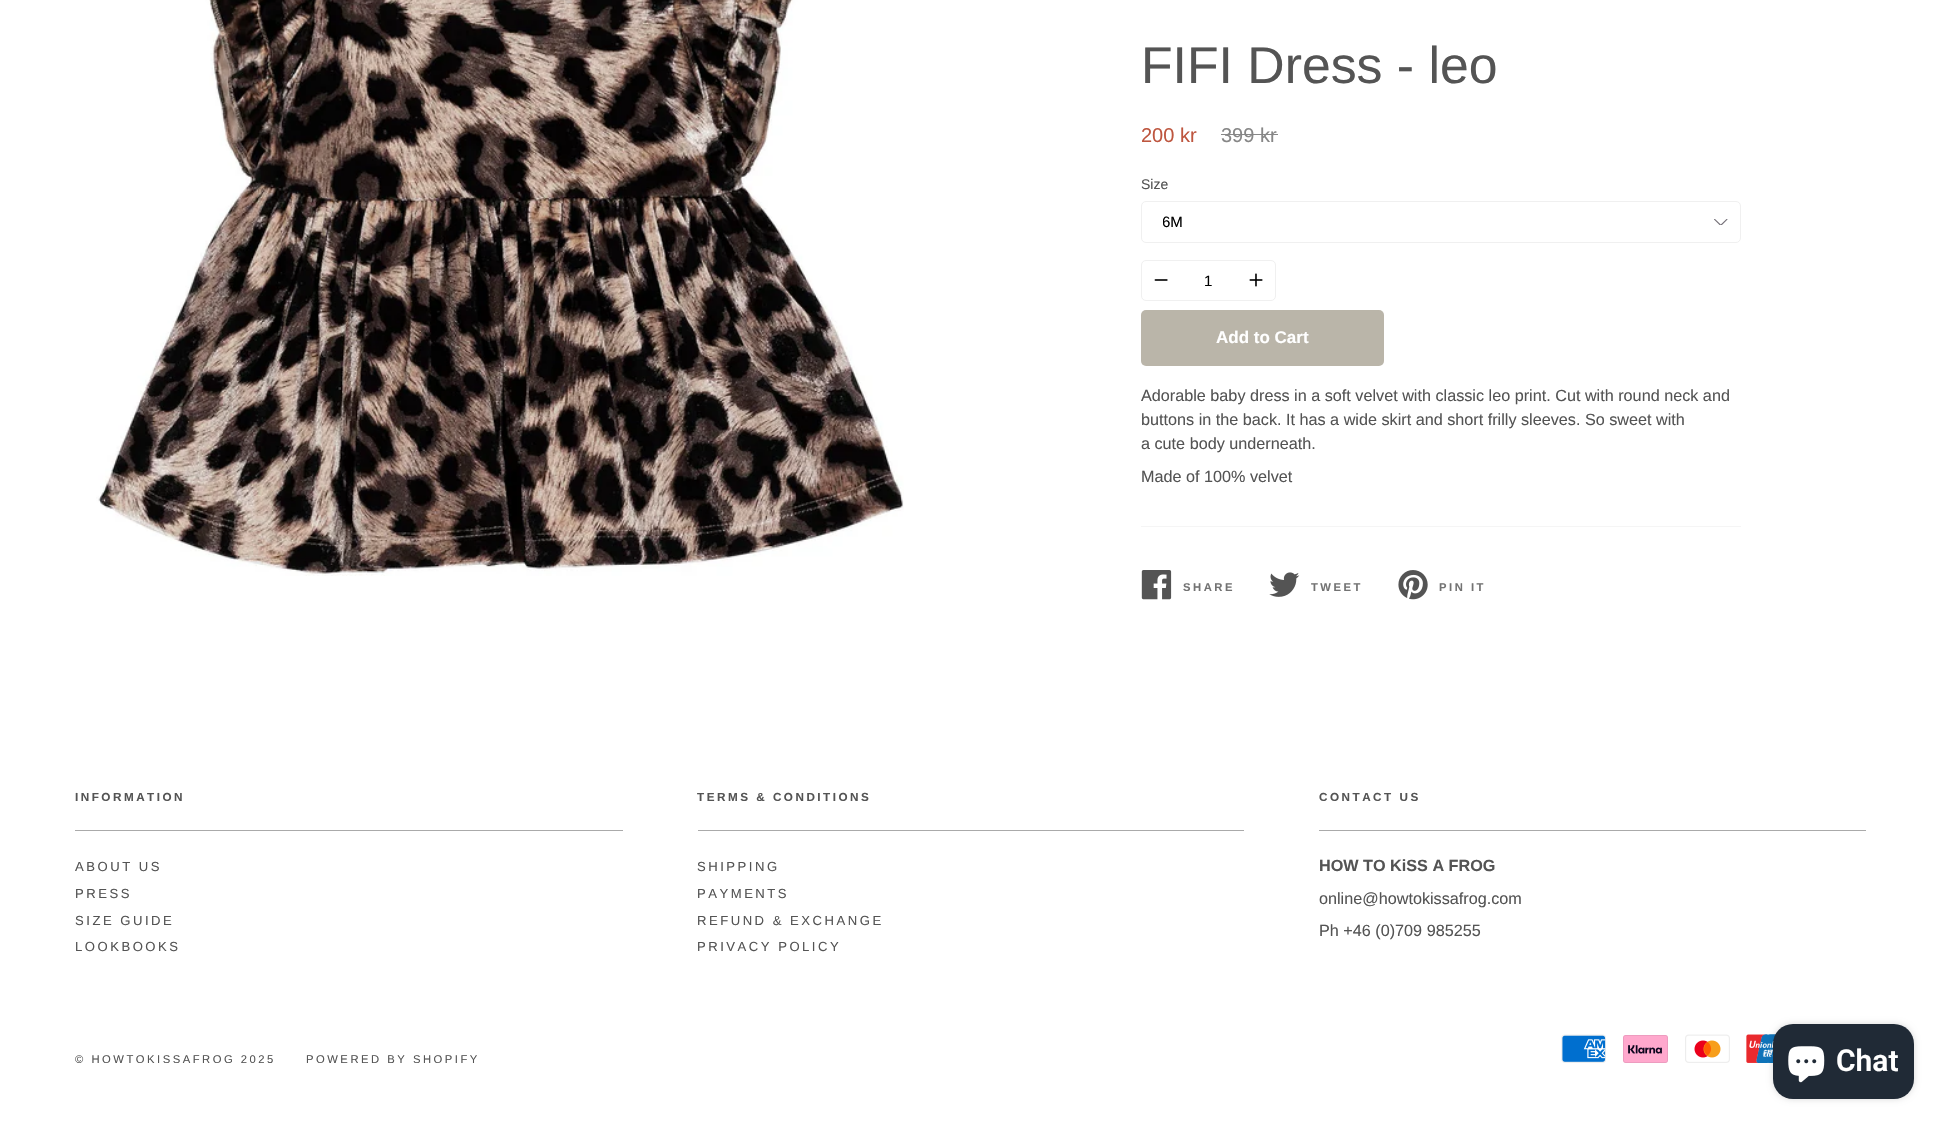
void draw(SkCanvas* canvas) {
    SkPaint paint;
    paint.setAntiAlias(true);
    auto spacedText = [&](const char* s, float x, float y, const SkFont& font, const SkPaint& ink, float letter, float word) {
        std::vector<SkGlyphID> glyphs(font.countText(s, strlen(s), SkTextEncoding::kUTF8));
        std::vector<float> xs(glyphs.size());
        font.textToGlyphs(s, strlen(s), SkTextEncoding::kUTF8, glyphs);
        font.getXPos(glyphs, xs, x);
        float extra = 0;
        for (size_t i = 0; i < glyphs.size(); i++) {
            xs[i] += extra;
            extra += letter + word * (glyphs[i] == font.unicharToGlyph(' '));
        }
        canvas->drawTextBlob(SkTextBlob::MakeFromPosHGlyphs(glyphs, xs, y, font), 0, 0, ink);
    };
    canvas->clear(0xFFFFFFFF);
    canvas->drawImageRect(SkImages::DeferredFromEncodedData(SkData::MakeFromFileName("img1.png")), SkRect::MakeXYWH(96, 0, 808, 576), SkSamplingOptions());
    SkFont font1(fontMgr->matchFamilyStyle("Liberation Sans", SkFontStyle::Normal()), 51.75f);
    font1.setSubpixel(true);
    paint.setColor(0xFF545454);
    canvas->drawString("FIFI Dress - leo", 1141, 83, font1, paint);
    SkFont font2(fontMgr->matchFamilyStyle("Liberation Sans", SkFontStyle::Normal()), 20);
    font2.setSubpixel(true);
    paint.setColor(0xFFBE563F);
    canvas->drawString("200 kr", 1141, 142, font2, paint);
    paint.setColor(0xFF878787);
    canvas->drawString("399 kr", 1221, 142, font2, paint);
    canvas->drawRect(SkRect::MakeXYWH(1221, 134, 57, 1), paint);
    SkFont font3(fontMgr->matchFamilyStyle("Liberation Sans", SkFontStyle::Normal()), 14);
    font3.setSubpixel(true);
    paint.setColor(0xFF545454);
    canvas->drawString("Size", 1141, 189, font3, paint);
    canvas->drawImageRect(SkImages::DeferredFromEncodedData(SkData::MakeFromFileName("img2.png")), SkRect::MakeXYWH(1714, 219, 14, 6), SkSamplingOptions());
    paint.setStyle(SkPaint::kStroke_Style);
    paint.setStrokeWidth(1);
    paint.setColor(0xFFF0F0F0);
    canvas->drawRoundRect(SkRect::MakeXYWH(1141.5f, 201.5f, 599, 41), 4.5f, 4.5f, paint);
    canvas->save();
    canvas->clipRect(SkRect::MakeXYWH(1163, 214, 542, 16));
    SkFont font4(fontMgr->matchFamilyStyle("Liberation Sans", SkFontStyle::Normal()), 15);
    font4.setSubpixel(true);
    paint.setStyle(SkPaint::kFill_Style);
    paint.setColor(0xFF000000);
    canvas->drawString("6M", 1162, 227, font4, paint);
    canvas->restore();
    paint.setStyle(SkPaint::kStroke_Style);
    paint.setColor(0xFFF0F0F0);
    canvas->drawRoundRect(SkRect::MakeXYWH(1141.5f, 260.5f, 134, 40), 4.5f, 4.5f, paint);
    canvas->drawImageRect(SkImages::DeferredFromEncodedData(SkData::MakeFromFileName("img3.png")), SkRect::MakeXYWH(1154, 279, 14, 2), SkSamplingOptions());
    paint.setStyle(SkPaint::kFill_Style);
    paint.setColor(0xFF000000);
    canvas->drawString("1", 1204, 286, font4, paint);
    canvas->drawImageRect(SkImages::DeferredFromEncodedData(SkData::MakeFromFileName("img4.png")), SkRect::MakeXYWH(1249, 273, 14, 14), SkSamplingOptions());
    paint.setColor(0xFFBAB5A9);
    canvas->drawRoundRect(SkRect::MakeXYWH(1141, 310, 243, 56), 5, 5, paint);
    SkFont font5(fontMgr->matchFamilyStyle("Liberation Sans", SkFontStyle::Bold()), 17);
    font5.setSubpixel(true);
    paint.setColor(0xFFFFFFFF);
    canvas->drawString("Add to Cart", 1216, 343, font5, paint);
    SkFont font6(fontMgr->matchFamilyStyle("Liberation Sans", SkFontStyle::Normal()), 16.2f);
    font6.setSubpixel(true);
    paint.setColor(0xFF545454);
    canvas->drawString("Adorable baby dress in a soft velvet with classic leo print. Cut with round neck and", 1141, 401, font6, paint);
    canvas->drawString("buttons in the back. It has a wide skirt and short frilly sleeves. So sweet with", 1141, 425, font6, paint);
    canvas->drawString("a cute body underneath.", 1141, 449, font6, paint);
    canvas->drawString("Made of 100% velvet", 1141, 482, font6, paint);
    paint.setColor(0xFFF5F5F5);
    canvas->drawRect(SkRect::MakeXYWH(1141, 526, 600, 1), paint);
    canvas->drawImageRect(SkImages::DeferredFromEncodedData(SkData::MakeFromFileName("img5.png")), SkRect::MakeXYWH(1141, 570, 31, 30), SkSamplingOptions());
    SkFont font7(fontMgr->matchFamilyStyle("Liberation Sans", SkFontStyle::Bold()), 11.25f);
    font7.setSubpixel(true);
    paint.setColor(0xFF737373);
    spacedText("SHARE", 1183, 591, font7, paint, 2.5f, 0);
    canvas->drawImageRect(SkImages::DeferredFromEncodedData(SkData::MakeFromFileName("img6.png")), SkRect::MakeXYWH(1269, 572, 31, 25), SkSamplingOptions());
    spacedText("TWEET", 1311, 591, font7, paint, 2.5f, 0);
    canvas->drawImageRect(SkImages::DeferredFromEncodedData(SkData::MakeFromFileName("img7.png")), SkRect::MakeXYWH(1398, 570, 30, 30), SkSamplingOptions());
    spacedText("PIN IT", 1439, 591, font7, paint, 2.5f, 0);
    SkFont font8(fontMgr->matchFamilyStyle("Liberation Sans", SkFontStyle::Bold()), 11.7f);
    font8.setSubpixel(true);
    paint.setColor(0xFF545454);
    spacedText("INFORMATION", 75, 801, font8, paint, 2.5f, 0);
    paint.setColor(0xFFAAAAAA);
    canvas->drawRect(SkRect::MakeXYWH(75, 830, 548, 1), paint);
    SkFont font9(fontMgr->matchFamilyStyle("Liberation Sans", SkFontStyle::Normal()), 13.1f);
    font9.setSubpixel(true);
    paint.setColor(0xFF545454);
    spacedText("ABOUT US", 75, 871, font9, paint, 2.5f, 0);
    spacedText("PRESS", 75, 898, font9, paint, 2.5f, 0);
    spacedText("SIZE GUIDE", 75, 925, font9, paint, 2.5f, 0);
    spacedText("LOOKBOOKS", 75, 951, font9, paint, 2.5f, 0);
    spacedText("TERMS & CONDITIONS", 697, 801, font8, paint, 2.5f, 0);
    paint.setColor(0xFFAAAAAA);
    canvas->drawRect(SkRect::MakeXYWH(698, 830, 546, 1), paint);
    paint.setColor(0xFF545454);
    spacedText("SHIPPING", 697, 871, font9, paint, 2.5f, 0);
    spacedText("PAYMENTS", 697, 898, font9, paint, 2.5f, 0);
    spacedText("REFUND & EXCHANGE", 697, 925, font9, paint, 2.5f, 0);
    spacedText("PRIVACY POLICY", 697, 951, font9, paint, 2.5f, 0);
    spacedText("CONTACT US", 1319, 801, font8, paint, 2.5f, 0);
    paint.setColor(0xFFAAAAAA);
    canvas->drawRect(SkRect::MakeXYWH(1319, 830, 547, 1), paint);
    SkFont font10(fontMgr->matchFamilyStyle("Liberation Sans", SkFontStyle::Bold()), 16.2f);
    font10.setSubpixel(true);
    paint.setColor(0xFF545454);
    canvas->drawString("HOW TO KiSS A FROG", 1319, 871, font10, paint);
    canvas->drawString("online@howtokissafrog.com", 1319, 904, font6, paint);
    canvas->drawString("Ph +46 (0)709 985255", 1319, 936, font6, paint);
    SkFont font11(fontMgr->matchFamilyStyle("Liberation Sans", SkFontStyle::Normal()), 11.25f);
    font11.setSubpixel(true);
    spacedText("© HOWTOKISSAFROG 2025", 75, 1063, font11, paint, 2.5f, 0);
    spacedText("POWERED BY SHOPIFY", 306, 1063, font11, paint, 2.5f, 0);
    canvas->drawImageRect(SkImages::DeferredFromEncodedData(SkData::MakeFromFileName("img8.png")), SkRect::MakeXYWH(1561, 1034, 45, 29), SkSamplingOptions());
    canvas->drawImageRect(SkImages::DeferredFromEncodedData(SkData::MakeFromFileName("img9.png")), SkRect::MakeXYWH(1623, 1035, 45, 28), SkSamplingOptions());
    canvas->drawImageRect(SkImages::DeferredFromEncodedData(SkData::MakeFromFileName("img10.png")), SkRect::MakeXYWH(1685, 1034, 45, 29), SkSamplingOptions());
    canvas->drawImageRect(SkImages::DeferredFromEncodedData(SkData::MakeFromFileName("img11.png")), SkRect::MakeXYWH(1746, 1034, 30, 29), SkSamplingOptions());
    paint.setColor(0x26000000);
    paint.setMaskFilter(SkMaskFilter::MakeBlur(kNormal_SkBlurStyle, 3));
    canvas->drawRoundRect(SkRect::MakeXYWH(1773, 1024, 141, 75), 20, 20, paint);
    paint.setMaskFilter(nullptr);
    paint.setColor(0xFF202A36);
    canvas->drawRoundRect(SkRect::MakeXYWH(1773, 1024, 141, 75), 20, 20, paint);
    canvas->drawImageRect(SkImages::DeferredFromEncodedData(SkData::MakeFromFileName("img12.png")), SkRect::MakeXYWH(1788, 1046, 37, 37), SkSamplingOptions());
    SkFont font12(fontMgr->matchFamilyStyle("Roboto", SkFontStyle(600, SkFontStyle::kNormal_Width, SkFontStyle::kUpright_Slant)), 30);
    font12.setSubpixel(true);
    paint.setColor(0xFFFFFFFF);
    canvas->drawString("Chat", 1836, 1071, font12, paint);
}
